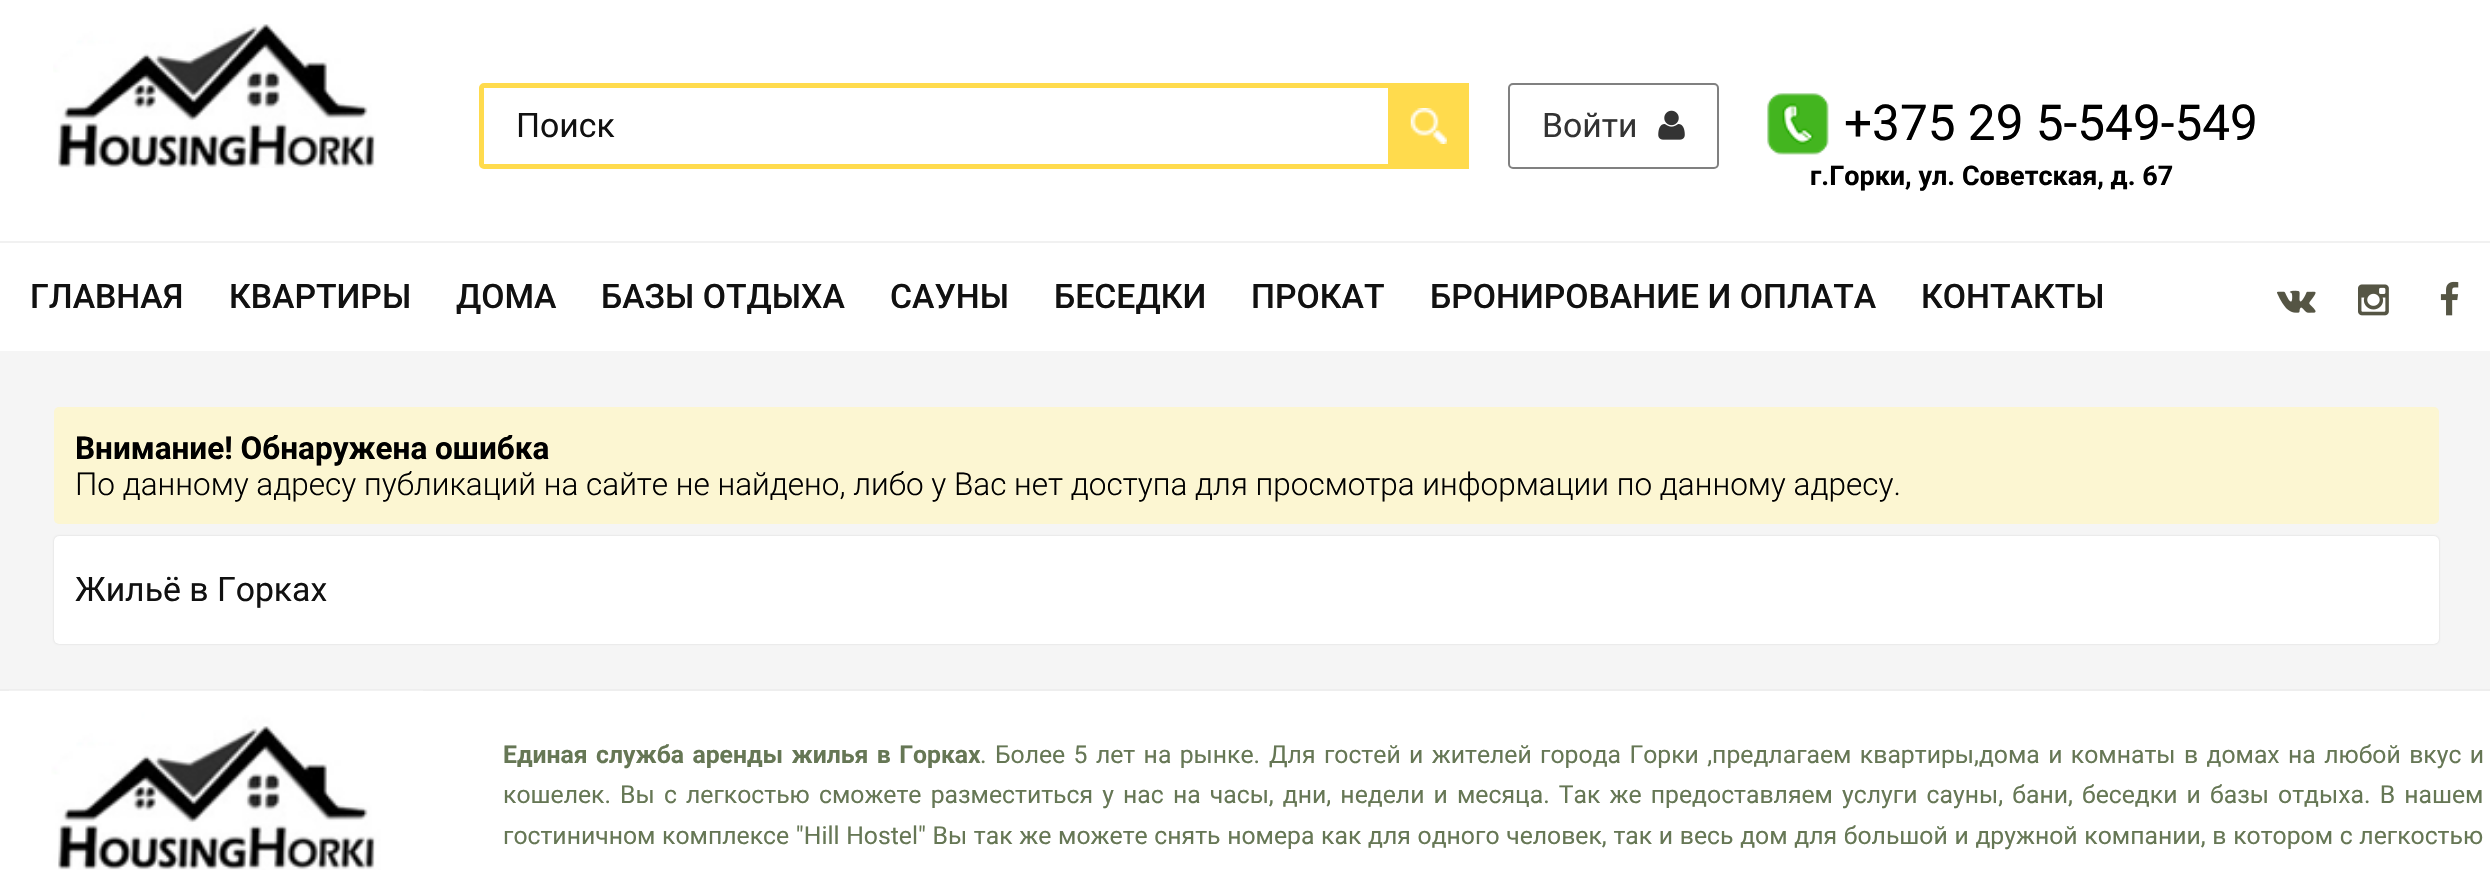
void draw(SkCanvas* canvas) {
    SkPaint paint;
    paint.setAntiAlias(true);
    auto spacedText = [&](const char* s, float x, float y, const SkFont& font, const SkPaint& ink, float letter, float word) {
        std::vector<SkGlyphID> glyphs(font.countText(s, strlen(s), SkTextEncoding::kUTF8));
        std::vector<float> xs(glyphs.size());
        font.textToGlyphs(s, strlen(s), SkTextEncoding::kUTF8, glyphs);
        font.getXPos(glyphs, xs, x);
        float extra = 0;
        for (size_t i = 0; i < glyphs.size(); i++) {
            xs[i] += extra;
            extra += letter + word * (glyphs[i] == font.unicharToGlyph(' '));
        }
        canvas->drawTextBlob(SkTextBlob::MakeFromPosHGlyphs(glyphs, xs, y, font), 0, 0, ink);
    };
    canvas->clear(0xFFF5F5F5);
    paint.setColor(0xFFFFFFFF);
    canvas->drawRect(SkRect::MakeXYWH(0, 0, 2490, 241), paint);
    canvas->drawImageRect(SkImages::DeferredFromEncodedData(SkData::MakeFromFileName("img1.png")), SkRect::MakeXYWH(53, 24, 323, 144), SkSamplingOptions());
    paint.setStyle(SkPaint::kStroke_Style);
    paint.setStrokeWidth(5);
    paint.setColor(0xFFFFDB4D);
    canvas->drawRoundRect(SkRect::MakeXYWH(481.5f, 85.5f, 985, 81), 2.5f, 2.5f, paint);
    SkFont font1(fontMgr->matchFamilyStyle("Roboto", SkFontStyle::Normal()), 33.75f);
    font1.setSubpixel(true);
    paint.setStyle(SkPaint::kFill_Style);
    paint.setColor(0xFF111111);
    canvas->drawString("Поиск", 516, 137, font1, paint);
    paint.setColor(0xFFFFDB4D);
    canvas->drawRect(SkRect::MakeXYWH(1388, 83, 81, 86), paint);
    canvas->drawImageRect(SkImages::DeferredFromEncodedData(SkData::MakeFromFileName("img2.png")), SkRect::MakeXYWH(1410, 108, 37, 36), SkSamplingOptions());
    paint.setStyle(SkPaint::kStroke_Style);
    paint.setStrokeWidth(2);
    paint.setColor(0xFF808080);
    canvas->drawRoundRect(SkRect::MakeXYWH(1509, 84, 209, 84), 4, 4, paint);
    paint.setStyle(SkPaint::kFill_Style);
    paint.setColor(0xFF333333);
    canvas->drawString("Войти", 1542, 137, font1, paint);
    canvas->drawImageRect(SkImages::DeferredFromEncodedData(SkData::MakeFromFileName("img3.png")), SkRect::MakeXYWH(1658, 110, 27, 30), SkSamplingOptions());
    canvas->drawImageRect(SkImages::DeferredFromEncodedData(SkData::MakeFromFileName("img4.png")), SkRect::MakeXYWH(1767, 93, 62, 62), SkSamplingOptions());
    SkFont font2(fontMgr->matchFamilyStyle("Roboto", SkFontStyle::Normal()), 49.5f);
    font2.setSubpixel(true);
    paint.setColor(0xFF000000);
    canvas->drawString("+375 29 5-549-549", 1844, 140, font2, paint);
    SkFont font3(fontMgr->matchFamilyStyle("Roboto", SkFontStyle::Bold()), 27);
    font3.setSubpixel(true);
    canvas->drawString("г.Горки, ул. Советская, д. 67", 1810, 185, font3, paint);
    paint.setColor(0xFFFFFFFF);
    canvas->drawRect(SkRect::MakeXYWH(0, 243, 2490, 108), paint);
    paint.setColor(0xFFF1F1F1);
    canvas->drawRect(SkRect::MakeXYWH(0, 241, 2490, 2), paint);
    SkFont font4(fontMgr->matchFamilyStyle("Roboto", SkFontStyle(500, SkFontStyle::kNormal_Width, SkFontStyle::kUpright_Slant)), 33.75f);
    font4.setSubpixel(true);
    paint.setColor(0xFF111111);
    canvas->drawString("ГЛАВНАЯ", 30, 308, font4, paint);
    canvas->drawString("КВАРТИРЫ", 229, 308, font4, paint);
    canvas->drawString("ДОМА", 456, 308, font4, paint);
    canvas->drawString("БАЗЫ ОТДЫХА", 601, 308, font4, paint);
    canvas->drawString("САУНЫ", 890, 308, font4, paint);
    canvas->drawString("БЕСЕДКИ", 1054, 308, font4, paint);
    canvas->drawString("ПРОКАТ", 1251, 308, font4, paint);
    canvas->drawString("БРОНИРОВАНИЕ И ОПЛАТА", 1430, 308, font4, paint);
    canvas->drawString("КОНТАКТЫ", 1921, 308, font4, paint);
    canvas->drawImageRect(SkImages::DeferredFromEncodedData(SkData::MakeFromFileName("img5.png")), SkRect::MakeXYWH(2277, 290, 39, 23), SkSamplingOptions());
    canvas->drawImageRect(SkImages::DeferredFromEncodedData(SkData::MakeFromFileName("img6.png")), SkRect::MakeXYWH(2358, 284, 31, 32), SkSamplingOptions());
    canvas->drawImageRect(SkImages::DeferredFromEncodedData(SkData::MakeFromFileName("img7.png")), SkRect::MakeXYWH(2440, 281, 19, 35), SkSamplingOptions());
    paint.setColor(0xFFFCF6D2);
    canvas->drawRoundRect(SkRect::MakeXYWH(54, 407, 2385, 117), 5, 5, paint);
    SkFont font5(fontMgr->matchFamilyStyle("Roboto", SkFontStyle::Bold()), 31.5f);
    font5.setSubpixel(true);
    paint.setColor(0xFF000000);
    canvas->drawString("Внимание! Обнаружена ошибка", 75, 459, font5, paint);
    SkFont font6(fontMgr->matchFamilyStyle("Roboto", SkFontStyle(300, SkFontStyle::kNormal_Width, SkFontStyle::kUpright_Slant)), 31.5f);
    font6.setSubpixel(true);
    canvas->drawString("По данному адресу публикаций на сайте не найдено, либо у Вас нет доступа для просмотра информации по данному адресу.", 75, 495, font6, paint);
    paint.setColor(0xFFD1D1D1);
    paint.setMaskFilter(SkMaskFilter::MakeBlur(kNormal_SkBlurStyle, 1));
    canvas->drawRoundRect(SkRect::MakeXYWH(54, 536, 2385, 108), 5, 5, paint);
    paint.setMaskFilter(nullptr);
    paint.setColor(0xFFFFFFFF);
    canvas->drawRoundRect(SkRect::MakeXYWH(54, 536, 2385, 108), 5, 5, paint);
    paint.setColor(0xFF111111);
    canvas->drawString("Жильё в Горках", 75, 601, font1, paint);
    paint.setColor(0xFFFFFFFF);
    canvas->drawRect(SkRect::MakeXYWH(0, 691, 2490, 185), paint);
    paint.setColor(0xFFEEEEEE);
    canvas->drawRect(SkRect::MakeXYWH(0, 689, 2490, 2), paint);
    canvas->drawImageRect(SkImages::DeferredFromEncodedData(SkData::MakeFromFileName("img8.png")), SkRect::MakeXYWH(9, 690, 414, 180), SkSamplingOptions());
    SkFont font7(fontMgr->matchFamilyStyle("Roboto", SkFontStyle::Bold()), 24.75f);
    font7.setSubpixel(true);
    paint.setColor(0xFF667755);
    spacedText("Единая служба аренды жилья в Горках", 503, 763, font7, paint, 0, 2.25f);
    SkFont font8(fontMgr->matchFamilyStyle("Roboto", SkFontStyle::Normal()), 24.75f);
    font8.setSubpixel(true);
    spacedText(". Более 5 лет на рынке.", 980, 763, font8, paint, 0, 2.25f);
    spacedText("Для гостей и жителей города Горки ,предлагаем квартиры,дома и комнаты в домах на любой вкус и", 1269, 763, font8, paint, 0, 2.25f);
    spacedText("кошелек. Вы с легкостью сможете разместиться у нас на часы, дни, недели и месяца. Так же предоставляем услуги сауны, бани, беседки и базы отдыха. В нашем", 503, 803, font8, paint, 0, 3);
    spacedText("гостиничном комплексе \"Hill Hostel\" Вы так же можете снять номера как для одного человек, так и весь дом для большой и дружной компании, в котором с легкостью", 503, 844, font8, paint, 0, 0.55f);
}
